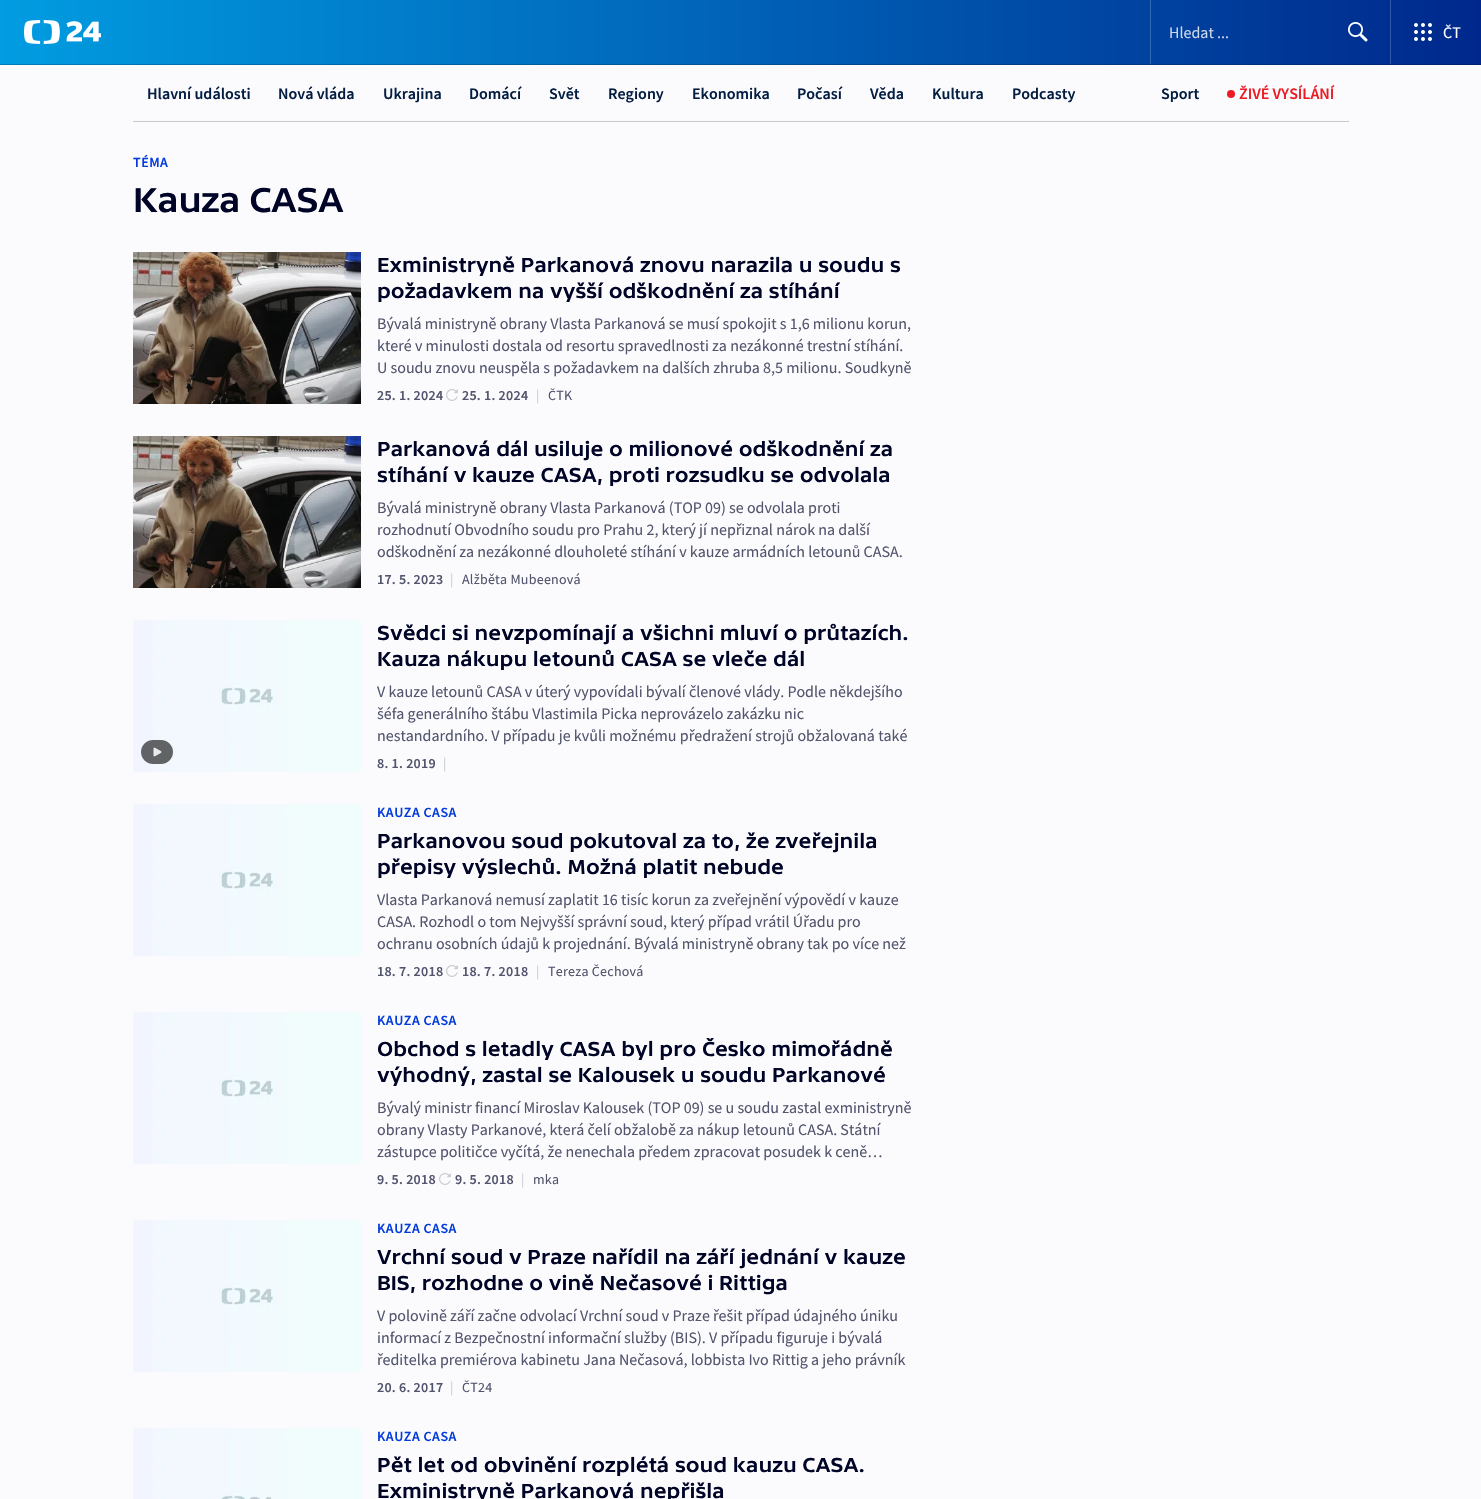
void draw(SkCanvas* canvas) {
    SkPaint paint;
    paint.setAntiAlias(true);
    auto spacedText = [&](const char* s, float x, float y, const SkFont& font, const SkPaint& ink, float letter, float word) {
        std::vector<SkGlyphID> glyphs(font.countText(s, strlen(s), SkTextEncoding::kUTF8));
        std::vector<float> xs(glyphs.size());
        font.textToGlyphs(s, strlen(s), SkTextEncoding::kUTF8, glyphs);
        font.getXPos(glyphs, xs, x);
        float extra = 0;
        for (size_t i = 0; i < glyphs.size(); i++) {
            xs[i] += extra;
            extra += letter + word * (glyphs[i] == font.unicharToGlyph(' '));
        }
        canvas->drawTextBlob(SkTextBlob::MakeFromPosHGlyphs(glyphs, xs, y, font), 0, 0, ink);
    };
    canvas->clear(0xFFFBFBFD);
    {
        const SkColor colors[] = {0xFF019CE1, 0xFF00288C};
        const float stops[] = {0, 1};
        const SkPoint ends[] = {{0, 32}, {1481, 32}};
        paint.setShader(SkGradientShader::MakeLinear(ends, colors, stops, 2, SkTileMode::kClamp));
        paint.setAlpha(255);
    }
    canvas->drawRect(SkRect::MakeXYWH(0, 0, 1481, 64), paint);
    {
        const SkColor colors[] = {0xFF017DB4, 0xFF002070};
        const float stops[] = {0, 1};
        const SkPoint ends[] = {{0, 32}, {1481, 32}};
        paint.setShader(SkGradientShader::MakeLinear(ends, colors, stops, 2, SkTileMode::kClamp));
        paint.setAlpha(255);
    }
    canvas->drawRect(SkRect::MakeXYWH(0, 64, 1481, 1), paint);
    canvas->drawImageRect(SkImages::DeferredFromEncodedData(SkData::MakeFromFileName("img1.png")), SkRect::MakeXYWH(24, 20, 77, 24), SkSamplingOptions());
    paint.setShader(nullptr);
    paint.setColor(0xFF3368B2);
    canvas->drawRect(SkRect::MakeXYWH(1150, 0, 1, 64), paint);
    SkFont font1(fontMgr->matchFamilyStyle("Source Sans Pro", SkFontStyle::Normal()), 16);
    font1.setSubpixel(true);
    paint.setColor(0xFFCCD8EB);
    canvas->drawString("Hledat ...", 1169, 38, font1, paint);
    canvas->drawImageRect(SkImages::DeferredFromEncodedData(SkData::MakeFromFileName("img2.png")), SkRect::MakeXYWH(1348, 22, 20, 20), SkSamplingOptions());
    paint.setColor(0xFF3359A7);
    canvas->drawRect(SkRect::MakeXYWH(1390, 0, 1, 64), paint);
    canvas->drawImageRect(SkImages::DeferredFromEncodedData(SkData::MakeFromFileName("img3.png")), SkRect::MakeXYWH(1414, 23, 18, 18), SkSamplingOptions());
    paint.setColor(0xFFFFFFFF);
    canvas->drawString("ČT", 1443, 38, font1, paint);
    paint.setColor(0xFFC9C9CA);
    canvas->drawRect(SkRect::MakeXYWH(133, 121, 1216, 1), paint);
    SkFont font2(fontMgr->matchFamilyStyle("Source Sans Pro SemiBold", SkFontStyle(600, SkFontStyle::kNormal_Width, SkFontStyle::kUpright_Slant)), 16);
    font2.setSubpixel(true);
    paint.setColor(0xFF041E42);
    canvas->drawString("Hlavní události", 147, 99, font2, paint);
    canvas->drawString("Nová vláda", 278, 99, font2, paint);
    canvas->drawString("Ukrajina", 383, 99, font2, paint);
    canvas->drawString("Domácí", 469, 99, font2, paint);
    canvas->drawString("Svět", 549, 99, font2, paint);
    canvas->drawString("Regiony", 608, 99, font2, paint);
    canvas->drawString("Ekonomika", 692, 99, font2, paint);
    canvas->drawString("Počasí", 797, 99, font2, paint);
    canvas->drawString("Věda", 870, 99, font2, paint);
    canvas->drawString("Kultura", 932, 99, font2, paint);
    canvas->drawString("Podcasty", 1012, 99, font2, paint);
    canvas->drawString("Sport", 1161, 99, font2, paint);
    paint.setColor(0xFFED1C24);
    canvas->drawCircle(1231, 94, 4, paint);
    canvas->drawString("ŽIVÉ VYSÍLÁNÍ", 1239, 99, font2, paint);
    SkFont font3(fontMgr->matchFamilyStyle("Source Sans Pro SemiBold", SkFontStyle(600, SkFontStyle::kNormal_Width, SkFontStyle::kUpright_Slant)), 14);
    font3.setSubpixel(true);
    paint.setColor(0xFF043CDC);
    spacedText("TÉMA", 133, 167, font3, paint, 0.5f, 0);
    SkFont font4(fontMgr->matchFamilyStyle("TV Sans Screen", SkFontStyle::Normal()), 36);
    font4.setSubpixel(true);
    paint.setColor(0xFF000528);
    spacedText("Kauza CASA", 133, 212, font4, paint, -0.5f, 0);
    canvas->drawImageRect(SkImages::DeferredFromEncodedData(SkData::MakeFromFileName("img4.png")), SkRect::MakeXYWH(133, 252, 228, 152), SkSamplingOptions());
    SkFont font5(fontMgr->matchFamilyStyle("TV Sans Screen", SkFontStyle::Normal()), 21);
    font5.setSubpixel(true);
    canvas->drawString("Exministryně Parkanová znovu narazila u soudu s", 377, 272, font5, paint);
    canvas->drawString("požadavkem na vyšší odškodnění za stíhání", 377, 298, font5, paint);
    paint.setColor(0xFF52556D);
    canvas->drawString("Bývalá ministryně obrany Vlasta Parkanová se musí spokojit s 1,6 milionu korun,", 377, 329, font1, paint);
    canvas->drawString("které v minulosti dostala od resortu spravedlnosti za nezákonné trestní stíhání.", 377, 351, font1, paint);
    canvas->drawString("U soudu znovu neuspěla s požadavkem na dalších zhruba 8,5 milionu. Soudkyně", 377, 373, font1, paint);
    spacedText("25. 1. 2024", 377, 400, font3, paint, 0.25f, 0);
    canvas->drawImageRect(SkImages::DeferredFromEncodedData(SkData::MakeFromFileName("img5.png")), SkRect::MakeXYWH(446, 389, 12, 12), SkSamplingOptions());
    spacedText("25. 1. 2024", 462, 400, font3, paint, 0.25f, 0);
    SkFont font6(fontMgr->matchFamilyStyle("Source Sans Pro", SkFontStyle::Normal()), 14);
    font6.setSubpixel(true);
    paint.setColor(0xFFCCCDD4);
    spacedText("|", 536, 400, font6, paint, 0.25f, 0);
    paint.setColor(0xFF52556D);
    spacedText("ČTK", 548, 400, font6, paint, 0.25f, 0);
    canvas->drawImageRect(SkImages::DeferredFromEncodedData(SkData::MakeFromFileName("img4.png")), SkRect::MakeXYWH(133, 436, 228, 152), SkSamplingOptions());
    paint.setColor(0xFF000528);
    canvas->drawString("Parkanová dál usiluje o milionové odškodnění za", 377, 456, font5, paint);
    canvas->drawString("stíhání v kauze CASA, proti rozsudku se odvolala", 377, 482, font5, paint);
    paint.setColor(0xFF52556D);
    canvas->drawString("Bývalá ministryně obrany Vlasta Parkanová (TOP 09) se odvolala proti", 377, 513, font1, paint);
    canvas->drawString("rozhodnutí Obvodního soudu pro Prahu 2, který jí nepřiznal nárok na další", 377, 535, font1, paint);
    canvas->drawString("odškodnění za nezákonné dlouholeté stíhání v kauze armádních letounů CASA.", 377, 557, font1, paint);
    spacedText("17. 5. 2023", 377, 584, font3, paint, 0.25f, 0);
    paint.setColor(0xFFCCCDD4);
    spacedText("|", 450, 584, font6, paint, 0.25f, 0);
    paint.setColor(0xFF52556D);
    spacedText("Alžběta Mubeenová", 462, 584, font6, paint, 0.25f, 0);
    canvas->drawImageRect(SkImages::DeferredFromEncodedData(SkData::MakeFromFileName("img6.png")), SkRect::MakeXYWH(133, 620, 228, 152), SkSamplingOptions());
    canvas->drawImageRect(SkImages::DeferredFromEncodedData(SkData::MakeFromFileName("img7.png")), SkRect::MakeXYWH(141, 740, 32, 24), SkSamplingOptions());
    paint.setColor(0xFF000528);
    canvas->drawString("Svědci si nevzpomínají a všichni mluví o průtazích.", 377, 640, font5, paint);
    canvas->drawString("Kauza nákupu letounů CASA se vleče dál", 377, 666, font5, paint);
    paint.setColor(0xFF52556D);
    canvas->drawString("V kauze letounů CASA v úterý vypovídali bývalí členové vlády. Podle někdejšího", 377, 697, font1, paint);
    canvas->drawString("šéfa generálního štábu Vlastimila Picka neprovázelo zakázku nic", 377, 719, font1, paint);
    canvas->drawString("nestandardního. V případu je kvůli možnému předražení strojů obžalovaná také", 377, 741, font1, paint);
    spacedText("8. 1. 2019", 377, 768, font3, paint, 0.25f, 0);
    paint.setColor(0xFFCCCDD4);
    spacedText("|", 443, 768, font6, paint, 0.25f, 0);
    canvas->drawImageRect(SkImages::DeferredFromEncodedData(SkData::MakeFromFileName("img8.png")), SkRect::MakeXYWH(133, 804, 228, 152), SkSamplingOptions());
    paint.setColor(0xFF043CDC);
    spacedText("KAUZA CASA", 377, 817, font3, paint, 0.5f, 0);
    paint.setColor(0xFF000528);
    canvas->drawString("Parkanovou soud pokutoval za to, že zveřejnila", 377, 848, font5, paint);
    canvas->drawString("přepisy výslechů. Možná platit nebude", 377, 874, font5, paint);
    paint.setColor(0xFF52556D);
    canvas->drawString("Vlasta Parkanová nemusí zaplatit 16 tisíc korun za zveřejnění výpovědí v kauze", 377, 905, font1, paint);
    canvas->drawString("CASA. Rozhodl o tom Nejvyšší správní soud, který případ vrátil Úřadu pro", 377, 927, font1, paint);
    canvas->drawString("ochranu osobních údajů k projednání. Bývalá ministryně obrany tak po více než", 377, 949, font1, paint);
    spacedText("18. 7. 2018", 377, 976, font3, paint, 0.25f, 0);
    canvas->drawImageRect(SkImages::DeferredFromEncodedData(SkData::MakeFromFileName("img5.png")), SkRect::MakeXYWH(446, 965, 12, 12), SkSamplingOptions());
    spacedText("18. 7. 2018", 462, 976, font3, paint, 0.25f, 0);
    paint.setColor(0xFFCCCDD4);
    spacedText("|", 536, 976, font6, paint, 0.25f, 0);
    paint.setColor(0xFF52556D);
    spacedText("Tereza Čechová", 548, 976, font6, paint, 0.25f, 0);
    canvas->drawImageRect(SkImages::DeferredFromEncodedData(SkData::MakeFromFileName("img8.png")), SkRect::MakeXYWH(133, 1012, 228, 152), SkSamplingOptions());
    paint.setColor(0xFF043CDC);
    spacedText("KAUZA CASA", 377, 1025, font3, paint, 0.5f, 0);
    paint.setColor(0xFF000528);
    canvas->drawString("Obchod s letadly CASA byl pro Česko mimořádně", 377, 1056, font5, paint);
    canvas->drawString("výhodný, zastal se Kalousek u soudu Parkanové", 377, 1082, font5, paint);
    paint.setColor(0xFF52556D);
    canvas->drawString("Bývalý ministr financí Miroslav Kalousek (TOP 09) se u soudu zastal exministryně", 377, 1113, font1, paint);
    canvas->drawString("obrany Vlasty Parkanové, která čelí obžalobě za nákup letounů CASA. Státní", 377, 1135, font1, paint);
    canvas->drawString("zástupce političce vyčítá, že nenechala předem zpracovat posudek k ceně…", 377, 1157, font1, paint);
    spacedText("9. 5. 2018", 377, 1184, font3, paint, 0.25f, 0);
    canvas->drawImageRect(SkImages::DeferredFromEncodedData(SkData::MakeFromFileName("img5.png")), SkRect::MakeXYWH(439, 1173, 12, 12), SkSamplingOptions());
    spacedText("9. 5. 2018", 455, 1184, font3, paint, 0.25f, 0);
    paint.setColor(0xFFCCCDD4);
    spacedText("|", 521, 1184, font6, paint, 0.25f, 0);
    paint.setColor(0xFF52556D);
    spacedText("mka", 533, 1184, font6, paint, 0.25f, 0);
    canvas->drawImageRect(SkImages::DeferredFromEncodedData(SkData::MakeFromFileName("img8.png")), SkRect::MakeXYWH(133, 1220, 228, 152), SkSamplingOptions());
    paint.setColor(0xFF043CDC);
    spacedText("KAUZA CASA", 377, 1233, font3, paint, 0.5f, 0);
    paint.setColor(0xFF000528);
    canvas->drawString("Vrchní soud v Praze nařídil na září jednání v kauze", 377, 1264, font5, paint);
    canvas->drawString("BIS, rozhodne o vině Nečasové i Rittiga", 377, 1290, font5, paint);
    paint.setColor(0xFF52556D);
    canvas->drawString("V polovině září začne odvolací Vrchní soud v Praze řešit případ údajného úniku", 377, 1321, font1, paint);
    canvas->drawString("informací z Bezpečnostní informační služby (BIS). V případu figuruje i bývalá", 377, 1343, font1, paint);
    canvas->drawString("ředitelka premiérova kabinetu Jana Nečasová, lobbista Ivo Rittig a jeho právník", 377, 1365, font1, paint);
    spacedText("20. 6. 2017", 377, 1392, font3, paint, 0.25f, 0);
    paint.setColor(0xFFCCCDD4);
    spacedText("|", 450, 1392, font6, paint, 0.25f, 0);
    paint.setColor(0xFF52556D);
    spacedText("ČT24", 462, 1392, font6, paint, 0.25f, 0);
    canvas->drawImageRect(SkImages::DeferredFromEncodedData(SkData::MakeFromFileName("img9.png")), SkRect::MakeXYWH(133, 1428, 228, 71), SkSamplingOptions());
    paint.setColor(0xFF043CDC);
    spacedText("KAUZA CASA", 377, 1441, font3, paint, 0.5f, 0);
    paint.setColor(0xFF000528);
    canvas->drawString("Pět let od obvinění rozplétá soud kauzu CASA.", 377, 1472, font5, paint);
    canvas->drawString("Exministryně Parkanová nepřišla", 377, 1498, font5, paint);
}
